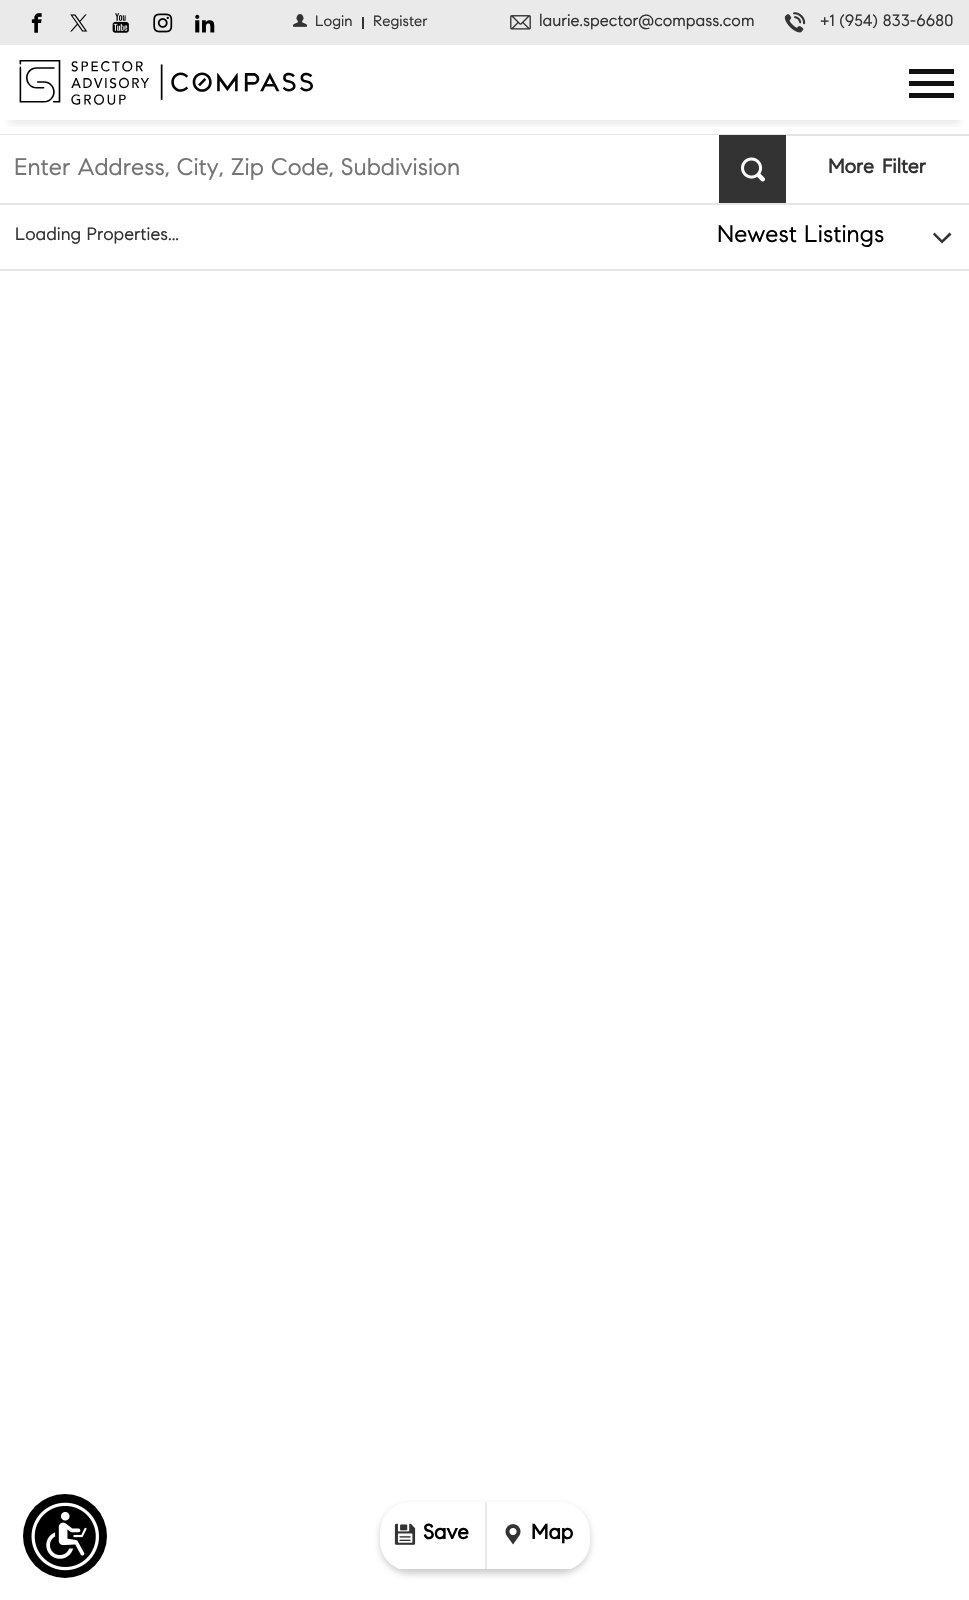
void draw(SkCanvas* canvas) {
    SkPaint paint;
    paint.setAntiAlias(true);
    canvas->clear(0xFFFFFFFF);
    paint.setColor(0xFFE5E5E5);
    canvas->drawRect(SkRect::MakeXYWH(0, 134, 969, 2), paint);
    paint.setColor(0xFFFFFFFF);
    canvas->drawRect(SkRect::MakeXYWH(0, 135, 719, 1), paint);
    paint.setColor(0xFF333333);
    canvas->drawRect(SkRect::MakeXYWH(719, 135, 67, 68), paint);
    canvas->save();
    canvas->clipRect(SkRect::MakeXYWH(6, 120, 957, 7));
    paint.setColor(0x1A000000);
    paint.setMaskFilter(SkMaskFilter::MakeBlur(kNormal_SkBlurStyle, 4.5f));
    canvas->drawRect(SkRect::MakeXYWH(9, 21, 951, 102), paint);
    paint.setMaskFilter(nullptr);
    canvas->restore();
    paint.setColor(0xFFEAEAEA);
    canvas->drawRect(SkRect::MakeXYWH(0, 0, 969, 45), paint);
    canvas->drawImageRect(SkImages::DeferredFromEncodedData(SkData::MakeFromFileName("img1.png")), SkRect::MakeXYWH(31, 13, 11, 20), SkSamplingOptions());
    canvas->drawImageRect(SkImages::DeferredFromEncodedData(SkData::MakeFromFileName("img2.png")), SkRect::MakeXYWH(70, 14, 18, 18), SkSamplingOptions());
    canvas->drawImageRect(SkImages::DeferredFromEncodedData(SkData::MakeFromFileName("img3.png")), SkRect::MakeXYWH(112, 13, 17, 20), SkSamplingOptions());
    canvas->drawImageRect(SkImages::DeferredFromEncodedData(SkData::MakeFromFileName("img4.png")), SkRect::MakeXYWH(153, 13, 20, 20), SkSamplingOptions());
    canvas->drawImageRect(SkImages::DeferredFromEncodedData(SkData::MakeFromFileName("img5.png")), SkRect::MakeXYWH(195, 14, 20, 19), SkSamplingOptions());
    canvas->drawImageRect(SkImages::DeferredFromEncodedData(SkData::MakeFromFileName("img6.png")), SkRect::MakeXYWH(293, 14, 14, 13), SkSamplingOptions());
    SkFont font1(fontMgr->matchFamilyStyle("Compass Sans", SkFontStyle::Normal()), 15);
    font1.setSubpixel(true);
    paint.setColor(0xFF333333);
    canvas->drawString("Login", 315, 26, font1, paint);
    canvas->drawRect(SkRect::MakeXYWH(362, 17, 2, 12), paint);
    canvas->drawString("Register", 373, 26, font1, paint);
    canvas->drawImageRect(SkImages::DeferredFromEncodedData(SkData::MakeFromFileName("img7.png")), SkRect::MakeXYWH(510, 15, 21, 15), SkSamplingOptions());
    SkFont font2(fontMgr->matchFamilyStyle("Compass Sans", SkFontStyle::Normal()), 16.5f);
    font2.setSubpixel(true);
    canvas->drawString("laurie.spector@compass.com", 539, 26, font2, paint);
    canvas->drawImageRect(SkImages::DeferredFromEncodedData(SkData::MakeFromFileName("img8.png")), SkRect::MakeXYWH(784, 12, 22, 21), SkSamplingOptions());
    canvas->drawString("+1 (954) 833-6680", 820, 26, font2, paint);
    canvas->drawImageRect(SkImages::DeferredFromEncodedData(SkData::MakeFromFileName("img9.png")), SkRect::MakeXYWH(19, 60, 294, 45), SkSamplingOptions());
    paint.setColor(0xFF111111);
    canvas->drawRect(SkRect::MakeXYWH(909, 69, 45, 5), paint);
    canvas->drawRect(SkRect::MakeXYWH(909, 81, 45, 5), paint);
    canvas->drawRect(SkRect::MakeXYWH(909, 93, 45, 5), paint);
    paint.setColor(0xFFE5E5E5);
    canvas->drawRect(SkRect::MakeXYWH(0, 203, 969, 2), paint);
    canvas->save();
    canvas->clipRect(SkRect::MakeXYWH(14, 158, 669, 24));
    SkFont font3(fontMgr->matchFamilyStyle("Compass Sans", SkFontStyle::Normal()), 24);
    font3.setSubpixel(true);
    paint.setColor(0xFF757575);
    canvas->drawString("Enter Address, City, Zip Code, Subdivision", 14, 175, font3, paint);
    canvas->restore();
    canvas->drawImageRect(SkImages::DeferredFromEncodedData(SkData::MakeFromFileName("img10.png")), SkRect::MakeXYWH(741, 157, 24, 25), SkSamplingOptions());
    SkFont font4(fontMgr->matchFamilyStyle("Compass Sans", SkFontStyle::Bold()), 20);
    font4.setSubpixel(true);
    paint.setColor(0xFF333333);
    canvas->drawString("More", 828, 173, font4, paint);
    canvas->drawString("Filter", 882, 173, font4, paint);
    paint.setColor(0xFFE5E5E5);
    canvas->drawRect(SkRect::MakeXYWH(0, 269, 969, 2), paint);
    SkFont font5(fontMgr->matchFamilyStyle("Compass Sans", SkFontStyle::Normal()), 18);
    font5.setSubpixel(true);
    paint.setColor(0xFF333333);
    canvas->drawString("Loading Properties...", 15, 240, font5, paint);
    paint.setColor(0xFF000000);
    canvas->drawString("Newest Listings", 717, 242, font3, paint);
    paint.setColor(0xFF333333);
    canvas->drawPath(SkPathBuilder().moveTo(951.5f, 234.5f).lineTo(942, 243.5f).lineTo(933, 234.5f).lineTo(934.5f, 232.5f).lineTo(942, 240).lineTo(949.5f, 232.5f).close().detach(), paint);
    paint.setColor(0x30000000);
    paint.setMaskFilter(SkMaskFilter::MakeBlur(kNormal_SkBlurStyle, 3));
    canvas->drawRoundRect(SkRect::MakeXYWH(380, 1505, 210, 69), 30, 30, paint);
    paint.setMaskFilter(nullptr);
    canvas->save();
    canvas->clipPath(SkPathBuilder().moveTo(410, 1502).lineTo(560, 1502).cubicTo(576.5f, 1502, 590, 1515.5f, 590, 1532).lineTo(590, 1541).cubicTo(590, 1557.5f, 576.5f, 1571, 560, 1571).lineTo(410, 1571).cubicTo(393.5f, 1571, 380, 1557.5f, 380, 1541).lineTo(380, 1532).cubicTo(380, 1515.5f, 393.5f, 1502, 410, 1502).close().detach(), true);
    paint.setColor(0xFFFFFFFF);
    canvas->drawPath(SkPathBuilder().moveTo(410, 1502).lineTo(485, 1502).lineTo(485, 1569).lineTo(380, 1569).lineTo(380, 1532).cubicTo(380, 1515.5f, 393.5f, 1502, 410, 1502).close().detach(), paint);
    canvas->restore();
    canvas->drawImageRect(SkImages::DeferredFromEncodedData(SkData::MakeFromFileName("img11.png")), SkRect::MakeXYWH(394, 1523, 22, 22), SkSamplingOptions());
    SkFont font6(fontMgr->matchFamilyStyle("Compass Sans", SkFontStyle::Bold()), 21);
    font6.setSubpixel(true);
    paint.setColor(0xFF000000);
    canvas->drawString("Save", 423, 1539, font6, paint);
    canvas->save();
    canvas->clipPath(SkPathBuilder().moveTo(410, 1502).lineTo(560, 1502).cubicTo(576.5f, 1502, 590, 1515.5f, 590, 1532).lineTo(590, 1541).cubicTo(590, 1557.5f, 576.5f, 1571, 560, 1571).lineTo(410, 1571).cubicTo(393.5f, 1571, 380, 1557.5f, 380, 1541).lineTo(380, 1532).cubicTo(380, 1515.5f, 393.5f, 1502, 410, 1502).close().detach(), true);
    paint.setColor(0xFFFFFFFF);
    canvas->drawPath(SkPathBuilder().moveTo(485, 1502).lineTo(560, 1502).cubicTo(576.5f, 1502, 590, 1515.5f, 590, 1532).lineTo(590, 1569).lineTo(485, 1569).close().detach(), paint);
    canvas->restore();
    paint.setColor(0xFFEAEAEA);
    canvas->drawRect(SkRect::MakeXYWH(485, 1502, 2, 67), paint);
    canvas->drawImageRect(SkImages::DeferredFromEncodedData(SkData::MakeFromFileName("img12.png")), SkRect::MakeXYWH(505, 1524, 16, 21), SkSamplingOptions());
    paint.setColor(0xFF000000);
    canvas->drawString("Map", 531, 1539, font6, paint);
    canvas->drawCircle(65, 1536, 42, paint);
    canvas->drawImageRect(SkImages::DeferredFromEncodedData(SkData::MakeFromFileName("img13.png")), SkRect::MakeXYWH(31, 1502, 68, 69), SkSamplingOptions());
}
